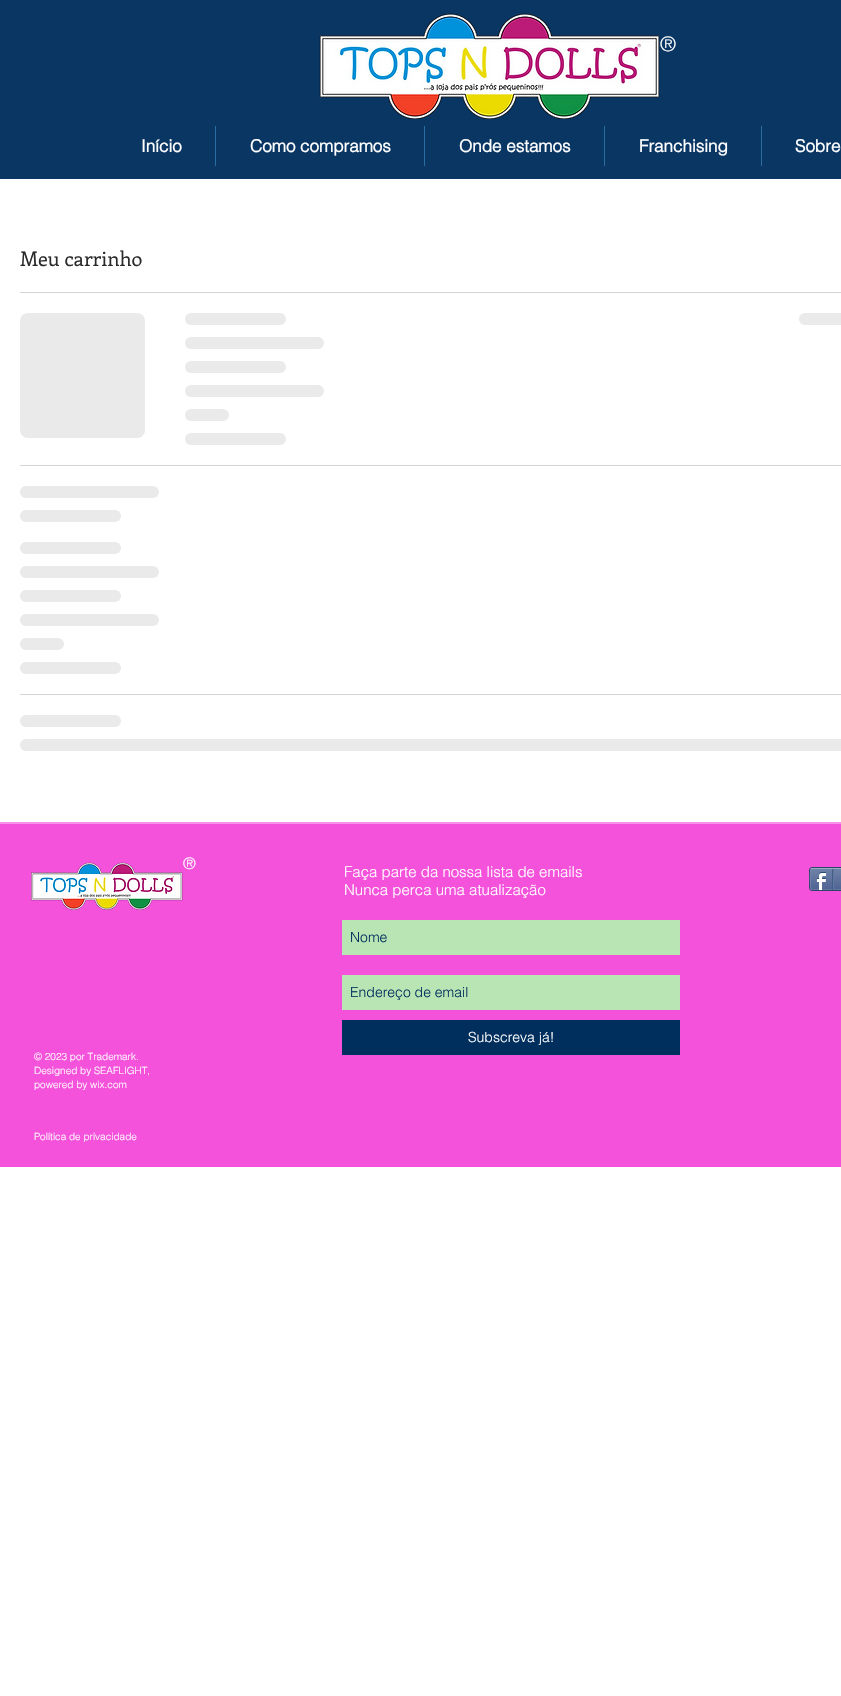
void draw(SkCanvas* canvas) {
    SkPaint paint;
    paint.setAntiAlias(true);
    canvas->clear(0xFFFFFFFF);
    paint.setColor(0xFF0A3664);
    canvas->drawRect(SkRect::MakeXYWH(0, 0, 841, 179), paint);
    canvas->drawImageRect(SkImages::DeferredFromEncodedData(SkData::MakeFromFileName("img1.png")), SkRect::MakeXYWH(319, 13, 341, 107), SkSamplingOptions());
    SkFont font1(fontMgr->matchFamilyStyle("helvetica", SkFontStyle(300, SkFontStyle::kNormal_Width, SkFontStyle::kUpright_Slant)), 20);
    font1.setSubpixel(true);
    paint.setColor(0xFFFFFFFF);
    canvas->drawString("®", 660, 51, font1, paint);
    SkFont font2(fontMgr->matchFamilyStyle("helvetica", SkFontStyle::Bold()), 17);
    font2.setSubpixel(true);
    canvas->drawString("Início", 141, 152, font2, paint);
    paint.setColor(0xFF2B6CA3);
    canvas->drawRect(SkRect::MakeXYWH(215, 126, 1, 40), paint);
    paint.setColor(0xFFFFFFFF);
    canvas->drawString("Como compramos", 250, 152, font2, paint);
    paint.setColor(0xFF2B6CA3);
    canvas->drawRect(SkRect::MakeXYWH(424, 126, 1, 40), paint);
    paint.setColor(0xFFFFFFFF);
    canvas->drawString("Onde estamos", 459, 152, font2, paint);
    paint.setColor(0xFF2B6CA3);
    canvas->drawRect(SkRect::MakeXYWH(604, 126, 1, 40), paint);
    paint.setColor(0xFFFFFFFF);
    canvas->drawString("Franchising", 639, 152, font2, paint);
    paint.setColor(0xFF2B6CA3);
    canvas->drawRect(SkRect::MakeXYWH(761, 126, 1, 40), paint);
    paint.setColor(0xFFFFFFFF);
    canvas->drawString("Sobre", 795, 152, font2, paint);
    paint.setColor(0xFFD4D4D4);
    canvas->drawRect(SkRect::MakeXYWH(20, 292, 821, 1), paint);
    SkFont font3(fontMgr->matchFamilyStyle("Enriqueta", SkFontStyle::Normal()), 20);
    font3.setSubpixel(true);
    paint.setColor(0xFF2A2A2A);
    canvas->drawString("Meu carrinho", 20, 266, font3, paint);
    {
        const SkColor colors[] = {0xFFEAEAEA, 0xFFD4D4D4, 0xFFEAEAEA};
        const float stops[] = {0.25f, 0.37f, 0.63f};
        const SkPoint ends[] = {{20, 376}, {520, 376}};
        paint.setShader(SkGradientShader::MakeLinear(ends, colors, stops, 3, SkTileMode::kClamp));
        paint.setAlpha(255);
    }
    canvas->drawRoundRect(SkRect::MakeXYWH(20, 313, 125, 125), 8, 8, paint);
    {
        const SkColor colors[] = {0xFFEAEAEA, 0xFFD4D4D4, 0xFFEAEAEA};
        const float stops[] = {0.25f, 0.37f, 0.63f};
        const SkPoint ends[] = {{185, 319}, {589, 319}};
        paint.setShader(SkGradientShader::MakeLinear(ends, colors, stops, 3, SkTileMode::kClamp));
        paint.setAlpha(255);
    }
    canvas->drawRoundRect(SkRect::MakeXYWH(185, 313, 101, 12), 6, 6, paint);
    {
        const SkColor colors[] = {0xFFEAEAEA, 0xFFD4D4D4, 0xFFEAEAEA};
        const float stops[] = {0.25f, 0.37f, 0.63f};
        const SkPoint ends[] = {{185, 343}, {741, 343}};
        paint.setShader(SkGradientShader::MakeLinear(ends, colors, stops, 3, SkTileMode::kClamp));
        paint.setAlpha(255);
    }
    canvas->drawRoundRect(SkRect::MakeXYWH(185, 337, 139, 12), 6, 6, paint);
    {
        const SkColor colors[] = {0xFFEAEAEA, 0xFFD4D4D4, 0xFFEAEAEA};
        const float stops[] = {0.25f, 0.37f, 0.63f};
        const SkPoint ends[] = {{185, 367}, {589, 367}};
        paint.setShader(SkGradientShader::MakeLinear(ends, colors, stops, 3, SkTileMode::kClamp));
        paint.setAlpha(255);
    }
    canvas->drawRoundRect(SkRect::MakeXYWH(185, 361, 101, 12), 6, 6, paint);
    {
        const SkColor colors[] = {0xFFEAEAEA, 0xFFD4D4D4, 0xFFEAEAEA};
        const float stops[] = {0.25f, 0.37f, 0.63f};
        const SkPoint ends[] = {{185, 391}, {741, 391}};
        paint.setShader(SkGradientShader::MakeLinear(ends, colors, stops, 3, SkTileMode::kClamp));
        paint.setAlpha(255);
    }
    canvas->drawRoundRect(SkRect::MakeXYWH(185, 385, 139, 12), 6, 6, paint);
    {
        const SkColor colors[] = {0xFFEAEAEA, 0xFFD4D4D4, 0xFFEAEAEA};
        const float stops[] = {0.25f, 0.37f, 0.63f};
        const SkPoint ends[] = {{185, 415}, {361, 415}};
        paint.setShader(SkGradientShader::MakeLinear(ends, colors, stops, 3, SkTileMode::kClamp));
        paint.setAlpha(255);
    }
    canvas->drawRoundRect(SkRect::MakeXYWH(185, 409, 44, 12), 6, 6, paint);
    {
        const SkColor colors[] = {0xFFEAEAEA, 0xFFD4D4D4, 0xFFEAEAEA};
        const float stops[] = {0.25f, 0.37f, 0.63f};
        const SkPoint ends[] = {{185, 439}, {589, 439}};
        paint.setShader(SkGradientShader::MakeLinear(ends, colors, stops, 3, SkTileMode::kClamp));
        paint.setAlpha(255);
    }
    canvas->drawRoundRect(SkRect::MakeXYWH(185, 433, 101, 12), 6, 6, paint);
    {
        const SkColor colors[] = {0xFFEAEAEA, 0xFFD4D4D4, 0xFFEAEAEA};
        const float stops[] = {0.25f, 0.37f, 0.63f};
        const SkPoint ends[] = {{799, 319}, {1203, 319}};
        paint.setShader(SkGradientShader::MakeLinear(ends, colors, stops, 3, SkTileMode::kClamp));
        paint.setAlpha(255);
    }
    canvas->drawRoundRect(SkRect::MakeXYWH(799, 313, 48, 12), 6, 6, paint);
    paint.setShader(nullptr);
    paint.setColor(0xFFD4D4D4);
    canvas->drawRect(SkRect::MakeXYWH(20, 465, 821, 1), paint);
    {
        const SkColor colors[] = {0xFFEAEAEA, 0xFFD4D4D4, 0xFFEAEAEA};
        const float stops[] = {0.25f, 0.37f, 0.63f};
        const SkPoint ends[] = {{20, 492}, {576, 492}};
        paint.setShader(SkGradientShader::MakeLinear(ends, colors, stops, 3, SkTileMode::kClamp));
        paint.setAlpha(255);
    }
    canvas->drawRoundRect(SkRect::MakeXYWH(20, 486, 139, 12), 6, 6, paint);
    {
        const SkColor colors[] = {0xFFEAEAEA, 0xFFD4D4D4, 0xFFEAEAEA};
        const float stops[] = {0.25f, 0.37f, 0.63f};
        const SkPoint ends[] = {{20, 516}, {424, 516}};
        paint.setShader(SkGradientShader::MakeLinear(ends, colors, stops, 3, SkTileMode::kClamp));
        paint.setAlpha(255);
    }
    canvas->drawRoundRect(SkRect::MakeXYWH(20, 510, 101, 12), 6, 6, paint);
    {
        const SkColor colors[] = {0xFFEAEAEA, 0xFFD4D4D4, 0xFFEAEAEA};
        const float stops[] = {0.25f, 0.37f, 0.63f};
        const SkPoint ends[] = {{20, 548}, {424, 548}};
        paint.setShader(SkGradientShader::MakeLinear(ends, colors, stops, 3, SkTileMode::kClamp));
        paint.setAlpha(255);
    }
    canvas->drawRoundRect(SkRect::MakeXYWH(20, 542, 101, 12), 6, 6, paint);
    {
        const SkColor colors[] = {0xFFEAEAEA, 0xFFD4D4D4, 0xFFEAEAEA};
        const float stops[] = {0.25f, 0.37f, 0.63f};
        const SkPoint ends[] = {{20, 572}, {576, 572}};
        paint.setShader(SkGradientShader::MakeLinear(ends, colors, stops, 3, SkTileMode::kClamp));
        paint.setAlpha(255);
    }
    canvas->drawRoundRect(SkRect::MakeXYWH(20, 566, 139, 12), 6, 6, paint);
    {
        const SkColor colors[] = {0xFFEAEAEA, 0xFFD4D4D4, 0xFFEAEAEA};
        const float stops[] = {0.25f, 0.37f, 0.63f};
        const SkPoint ends[] = {{20, 596}, {424, 596}};
        paint.setShader(SkGradientShader::MakeLinear(ends, colors, stops, 3, SkTileMode::kClamp));
        paint.setAlpha(255);
    }
    canvas->drawRoundRect(SkRect::MakeXYWH(20, 590, 101, 12), 6, 6, paint);
    {
        const SkColor colors[] = {0xFFEAEAEA, 0xFFD4D4D4, 0xFFEAEAEA};
        const float stops[] = {0.25f, 0.37f, 0.63f};
        const SkPoint ends[] = {{20, 620}, {576, 620}};
        paint.setShader(SkGradientShader::MakeLinear(ends, colors, stops, 3, SkTileMode::kClamp));
        paint.setAlpha(255);
    }
    canvas->drawRoundRect(SkRect::MakeXYWH(20, 614, 139, 12), 6, 6, paint);
    {
        const SkColor colors[] = {0xFFEAEAEA, 0xFFD4D4D4, 0xFFEAEAEA};
        const float stops[] = {0.25f, 0.37f, 0.63f};
        const SkPoint ends[] = {{20, 644}, {196, 644}};
        paint.setShader(SkGradientShader::MakeLinear(ends, colors, stops, 3, SkTileMode::kClamp));
        paint.setAlpha(255);
    }
    canvas->drawRoundRect(SkRect::MakeXYWH(20, 638, 44, 12), 6, 6, paint);
    {
        const SkColor colors[] = {0xFFEAEAEA, 0xFFD4D4D4, 0xFFEAEAEA};
        const float stops[] = {0.25f, 0.37f, 0.63f};
        const SkPoint ends[] = {{20, 668}, {424, 668}};
        paint.setShader(SkGradientShader::MakeLinear(ends, colors, stops, 3, SkTileMode::kClamp));
        paint.setAlpha(255);
    }
    canvas->drawRoundRect(SkRect::MakeXYWH(20, 662, 101, 12), 6, 6, paint);
    paint.setShader(nullptr);
    paint.setColor(0xFFD4D4D4);
    canvas->drawRect(SkRect::MakeXYWH(20, 694, 821, 1), paint);
    {
        const SkColor colors[] = {0xFFEAEAEA, 0xFFD4D4D4, 0xFFEAEAEA};
        const float stops[] = {0.25f, 0.37f, 0.63f};
        const SkPoint ends[] = {{20, 721}, {424, 721}};
        paint.setShader(SkGradientShader::MakeLinear(ends, colors, stops, 3, SkTileMode::kClamp));
        paint.setAlpha(255);
    }
    canvas->drawRoundRect(SkRect::MakeXYWH(20, 715, 101, 12), 6, 6, paint);
    {
        const SkColor colors[] = {0xFFEAEAEA, 0xFFD4D4D4, 0xFFEAEAEA};
        const float stops[] = {0.25f, 0.37f, 0.63f};
        const SkPoint ends[] = {{20, 745}, {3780, 745}};
        paint.setShader(SkGradientShader::MakeLinear(ends, colors, stops, 3, SkTileMode::kClamp));
        paint.setAlpha(255);
    }
    canvas->drawRoundRect(SkRect::MakeXYWH(20, 739, 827, 12), 6, 6, paint);
    paint.setShader(nullptr);
    paint.setColor(0xFFF990E9);
    canvas->drawRect(SkRect::MakeXYWH(0, 822, 841, 2), paint);
    paint.setColor(0xFFF552DC);
    canvas->drawRect(SkRect::MakeXYWH(0, 824, 841, 343), paint);
    canvas->drawImageRect(SkImages::DeferredFromEncodedData(SkData::MakeFromFileName("img2.png")), SkRect::MakeXYWH(31, 862, 152, 48), SkSamplingOptions());
    SkFont font4(fontMgr->matchFamilyStyle("helvetica", SkFontStyle(300, SkFontStyle::kNormal_Width, SkFontStyle::kUpright_Slant)), 16);
    font4.setSubpixel(true);
    paint.setColor(0xFFFFFFFF);
    canvas->drawString("®", 183, 869, font4, paint);
    SkFont font5(fontMgr->matchFamilyStyle("helvetica", SkFontStyle(300, SkFontStyle::kNormal_Width, SkFontStyle::kUpright_Slant)), 15);
    font5.setSubpixel(true);
    canvas->drawString("Faça parte da nossa lista de emails", 344, 877, font5, paint);
    canvas->drawString("Nunca perca uma atualização", 344, 895, font5, paint);
    paint.setColor(0xFFB9E5B4);
    canvas->drawRect(SkRect::MakeXYWH(342, 920, 338, 35), paint);
    SkFont font6(fontMgr->matchFamilyStyle("helvetica", SkFontStyle(300, SkFontStyle::kNormal_Width, SkFontStyle::kUpright_Slant)), 14);
    font6.setSubpixel(true);
    paint.setColor(0xFF002E5D);
    canvas->drawString("Nome", 350, 942, font6, paint);
    paint.setColor(0xFFB9E5B4);
    canvas->drawRect(SkRect::MakeXYWH(342, 975, 338, 35), paint);
    paint.setColor(0xFF002E5D);
    canvas->drawString("Endereço de email", 350, 997, font6, paint);
    canvas->drawRect(SkRect::MakeXYWH(342, 1020, 338, 35), paint);
    paint.setColor(0xFFFFFFFF);
    canvas->drawString("Subscreva já!", 468, 1042, font6, paint);
    paint.setStyle(SkPaint::kStroke_Style);
    paint.setStrokeWidth(1);
    paint.setColor(0xFF2D4565);
    canvas->drawRoundRect(SkRect::MakeXYWH(809.5f, 867.5f, 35, 23), 2.5f, 2.5f, paint);
    canvas->drawImageRect(SkImages::DeferredFromEncodedData(SkData::MakeFromFileName("img3.png")), SkRect::MakeXYWH(810, 869, 31, 21), SkSamplingOptions());
    paint.setColor(0xFF9AABC6);
    canvas->drawPath(SkPathBuilder().moveTo(811, 869).lineTo(812, 868.5f).lineTo(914, 868.5f).lineTo(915, 869).detach(), paint);
    paint.setColor(0xFF6176A3);
    canvas->drawPath(SkPathBuilder().moveTo(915, 889).lineTo(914, 889.5f).lineTo(812, 889.5f).lineTo(811, 889).detach(), paint);
    paint.setColor(0xFF6F83AD);
    canvas->drawPath(SkPathBuilder().moveTo(811, 889).cubicTo(810, 888.5f, 810, 869.5f, 811, 869).detach(), paint);
    canvas->drawImageRect(SkImages::DeferredFromEncodedData(SkData::MakeFromFileName("img4.png")), SkRect::MakeXYWH(816, 872, 10, 18), SkSamplingOptions());
    paint.setStyle(SkPaint::kFill_Style);
    paint.setColor(0xFF425E85);
    canvas->drawRect(SkRect::MakeXYWH(832, 869, 1, 21), paint);
    paint.setColor(0xFF6176A3);
    canvas->drawRect(SkRect::MakeXYWH(833, 869, 1, 20), paint);
    SkFont font7(fontMgr->matchFamilyStyle("helvetica", SkFontStyle(300, SkFontStyle::kNormal_Width, SkFontStyle::kUpright_Slant)), 10);
    font7.setSubpixel(true);
    paint.setColor(0xFFFFFFFF);
    canvas->drawString("© 2023 por Trademark.", 34, 1060, font7, paint);
    canvas->drawString("Designed by SEAFLIGHT,", 34, 1074, font7, paint);
    canvas->drawString("powered by wix.com", 34, 1088, font7, paint);
    canvas->drawString("Política de privacidade", 34, 1140, font7, paint);
}
